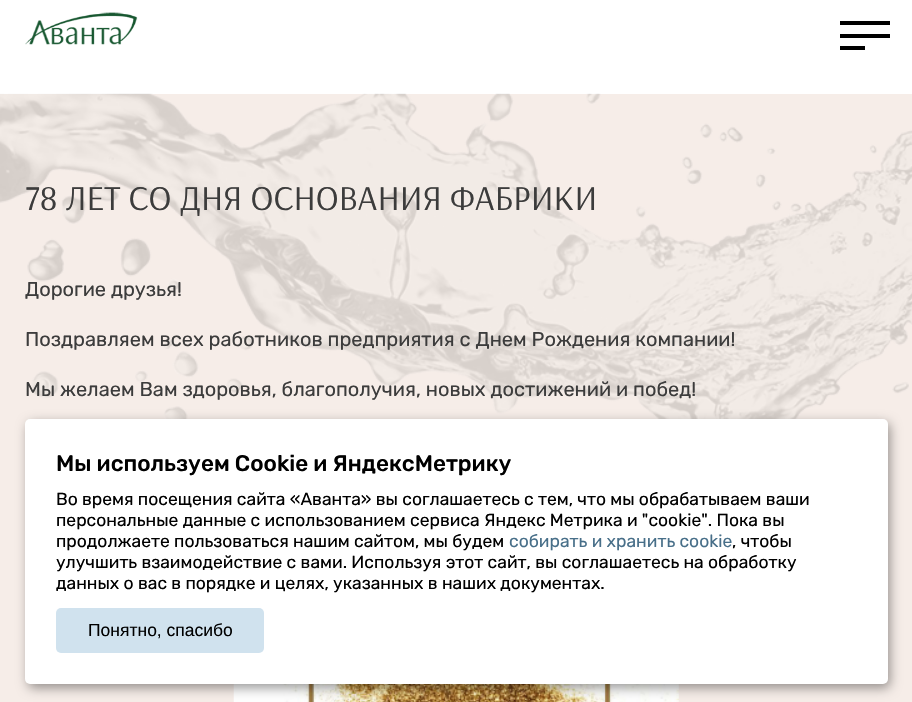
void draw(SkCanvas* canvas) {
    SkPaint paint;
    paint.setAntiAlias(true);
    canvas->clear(0xFFFFFFFF);
    canvas->drawImageRect(SkImages::DeferredFromEncodedData(SkData::MakeFromFileName("img1.png")), SkRect::MakeXYWH(25, 12, 113, 33), SkSamplingOptions());
    paint.setColor(0xFF000000);
    canvas->drawRect(SkRect::MakeXYWH(840, 34, 50, 4), paint);
    canvas->drawRect(SkRect::MakeXYWH(840, 21, 50, 4), paint);
    canvas->drawRect(SkRect::MakeXYWH(840, 46, 25, 4), paint);
    paint.setColor(0xFFF6EDE8);
    canvas->drawRect(SkRect::MakeXYWH(0, 94, 912, 608), paint);
    canvas->drawImageRect(SkImages::DeferredFromEncodedData(SkData::MakeFromFileName("img2.png")), SkRect::MakeXYWH(0, 93, 912, 326), SkSamplingOptions());
    SkFont font1(fontMgr->matchFamilyStyle("Arsenal", SkFontStyle::Normal()), 35);
    font1.setSubpixel(true);
    paint.setColor(0xFF3C3C3C);
    canvas->drawString("78 ЛЕТ СО ДНЯ ОСНОВАНИЯ ФАБРИКИ", 25, 210, font1, paint);
    SkFont font2(fontMgr->matchFamilyStyle("Rubik", SkFontStyle::Normal()), 20);
    font2.setSubpixel(true);
    canvas->drawString("Дорогие друзья!", 25, 296, font2, paint);
    canvas->drawString("Поздравляем всех работников предприятия с Днем Рождения компании!", 25, 346, font2, paint);
    canvas->drawString("Мы желаем Вам здоровья, благополучия, новых достижений и побед!", 25, 396, font2, paint);
    canvas->drawImageRect(SkImages::DeferredFromEncodedData(SkData::MakeFromFileName("img3.png")), SkRect::MakeXYWH(233, 684, 446, 18), SkSamplingOptions());
    paint.setColor(0x66000000);
    paint.setMaskFilter(SkMaskFilter::MakeBlur(kNormal_SkBlurStyle, 6));
    canvas->drawRoundRect(SkRect::MakeXYWH(28, 423, 862, 265), 5, 5, paint);
    paint.setMaskFilter(nullptr);
    paint.setColor(0xFFFFFFFF);
    canvas->drawRoundRect(SkRect::MakeXYWH(25, 419, 863, 265), 5, 5, paint);
    SkFont font3(fontMgr->matchFamilyStyle("Rubik", SkFontStyle(500, SkFontStyle::kNormal_Width, SkFontStyle::kUpright_Slant)), 22.5f);
    font3.setSubpixel(true);
    paint.setColor(0xFF000000);
    canvas->drawString("Мы используем Сookie и ЯндексМетрику", 56, 471, font3, paint);
    SkFont font4(fontMgr->matchFamilyStyle("Rubik", SkFontStyle::Normal()), 17.5f);
    font4.setSubpixel(true);
    canvas->drawString("Во время посещения сайта «Аванта» вы соглашаетесь с тем, что мы обрабатываем ваши", 56, 505, font4, paint);
    canvas->drawString("персональные данные с использованием сервиса Яндекс Метрика и \"cookie\". Пока вы", 56, 526, font4, paint);
    canvas->drawString("продолжаете пользоваться нашим сайтом, мы будем", 56, 547, font4, paint);
    paint.setColor(0xFF486F89);
    canvas->drawString("собирать и хранить cookie", 509, 547, font4, paint);
    paint.setColor(0xFF000000);
    canvas->drawString(", чтобы", 732, 547, font4, paint);
    canvas->drawString("улучшить взаимодействие с вами. Используя этот сайт, вы соглашаетесь на обработку", 56, 568, font4, paint);
    canvas->drawString("данных о вас в порядке и целях, указанных в наших документах.", 56, 589, font4, paint);
    paint.setColor(0xFFD0E2EE);
    canvas->drawRoundRect(SkRect::MakeXYWH(56, 608, 208, 45), 5, 5, paint);
    SkFont font5(fontMgr->matchFamilyStyle("Liberation Sans", SkFontStyle::Normal()), 17.5f);
    font5.setSubpixel(true);
    paint.setColor(0xFF000000);
    canvas->drawString("Понятно, спасибо", 88, 636, font5, paint);
}
